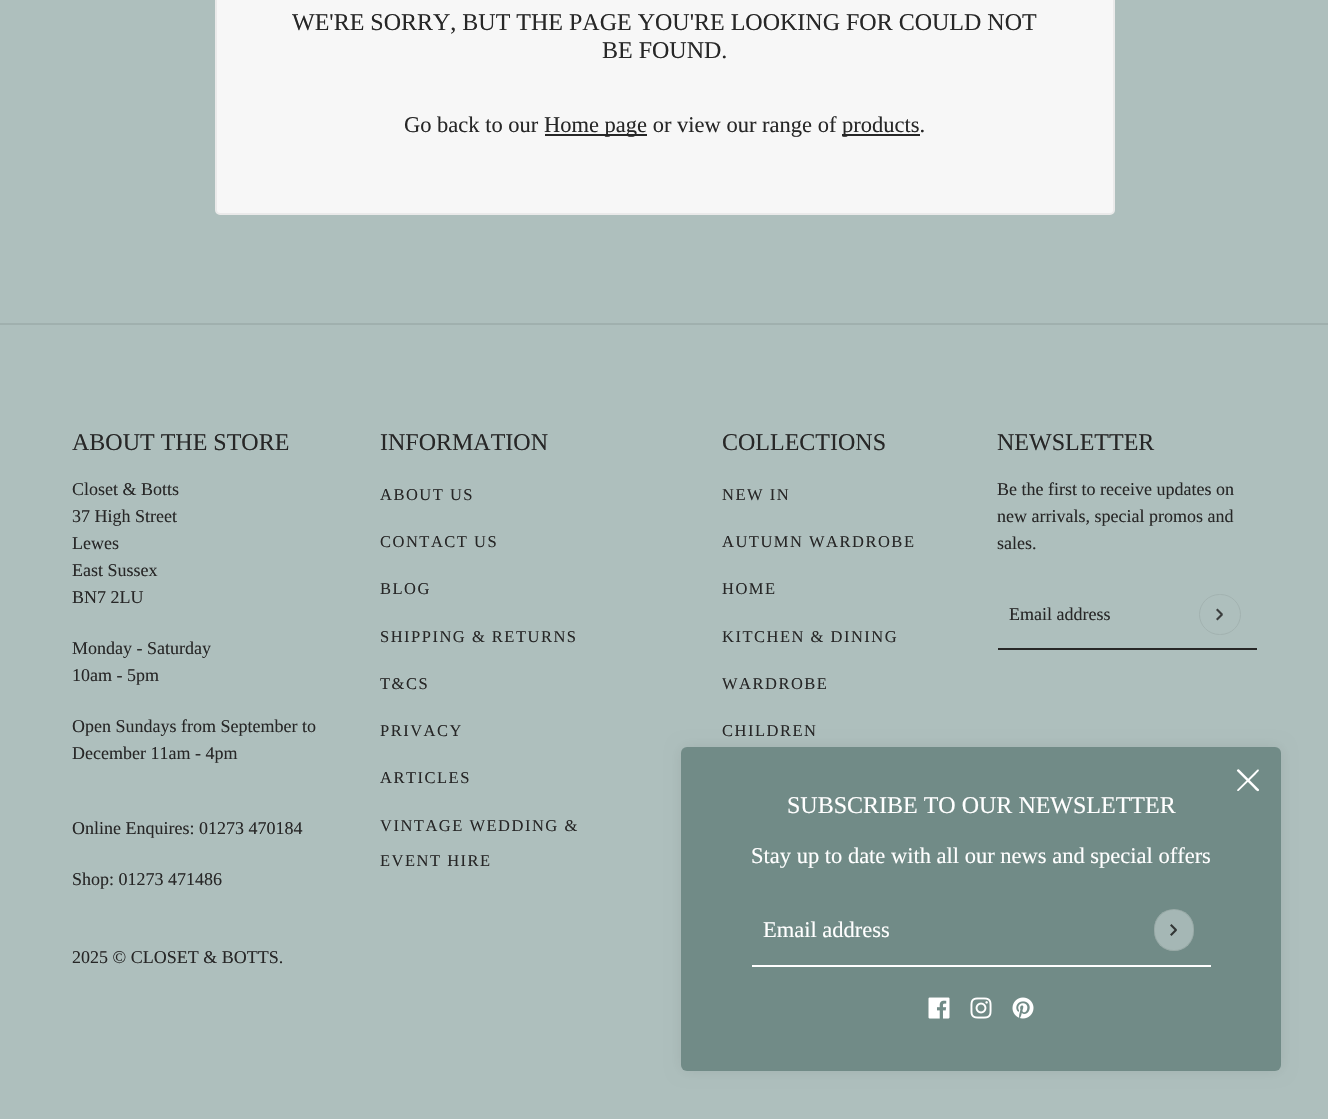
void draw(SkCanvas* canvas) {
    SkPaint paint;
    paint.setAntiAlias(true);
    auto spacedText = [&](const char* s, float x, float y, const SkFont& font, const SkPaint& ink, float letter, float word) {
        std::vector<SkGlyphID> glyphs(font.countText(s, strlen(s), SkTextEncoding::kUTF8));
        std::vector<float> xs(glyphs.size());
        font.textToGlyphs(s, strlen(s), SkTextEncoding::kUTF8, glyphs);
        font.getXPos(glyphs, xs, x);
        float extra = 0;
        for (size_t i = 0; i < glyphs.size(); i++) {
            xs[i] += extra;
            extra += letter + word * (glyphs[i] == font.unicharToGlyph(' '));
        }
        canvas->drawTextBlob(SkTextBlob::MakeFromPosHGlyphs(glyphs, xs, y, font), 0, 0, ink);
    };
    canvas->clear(0xFFAEBFBD);
    paint.setColor(0xFFF7F7F7);
    canvas->drawRoundRect(SkRect::MakeXYWH(216, -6, 898, 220), 4, 4, paint);
    paint.setStyle(SkPaint::kStroke_Style);
    paint.setStrokeWidth(2);
    paint.setColor(0xFFEAEAEA);
    canvas->drawRoundRect(SkRect::MakeXYWH(216, -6, 898, 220), 4, 4, paint);
    SkFont font1(fontMgr->matchFamilyStyle("Liberation Serif", SkFontStyle::Normal()), 24);
    font1.setSubpixel(true);
    paint.setStyle(SkPaint::kFill_Style);
    paint.setColor(0xFF272727);
    canvas->drawString("WE'RE SORRY, BUT THE PAGE YOU'RE LOOKING FOR COULD NOT", 292, 30, font1, paint);
    canvas->drawString("BE FOUND.", 602, 58, font1, paint);
    SkFont font2(fontMgr->matchFamilyStyle("Liberation Serif", SkFontStyle::Normal()), 22.5f);
    font2.setSubpixel(true);
    canvas->drawString("Go back to our", 404, 132, font2, paint);
    canvas->drawRect(SkRect::MakeXYWH(545, 134, 102, 2), paint);
    canvas->drawString("Home page or view our range of", 544, 132, font2, paint);
    canvas->drawRect(SkRect::MakeXYWH(842, 134, 78, 2), paint);
    canvas->drawString("products.", 842, 132, font2, paint);
    paint.setColor(0xFFA0B0AE);
    canvas->drawRect(SkRect::MakeXYWH(0, 323, 1328, 2), paint);
    paint.setColor(0xFF272727);
    canvas->drawString("ABOUT THE STORE", 72, 450, font1, paint);
    SkFont font3(fontMgr->matchFamilyStyle("Liberation Serif", SkFontStyle::Normal()), 18);
    font3.setSubpixel(true);
    canvas->drawString("Closet & Botts", 72, 495, font3, paint);
    canvas->drawString("37 High Street", 72, 522, font3, paint);
    canvas->drawString("Lewes", 72, 549, font3, paint);
    canvas->drawString("East Sussex", 72, 576, font3, paint);
    canvas->drawString("BN7 2LU", 72, 603, font3, paint);
    canvas->drawString("Monday - Saturday", 72, 654, font3, paint);
    canvas->drawString("10am - 5pm", 72, 681, font3, paint);
    canvas->drawString("Open Sundays from September to", 72, 732, font3, paint);
    canvas->drawString("December 11am - 4pm", 72, 759, font3, paint);
    canvas->drawString("Online Enquires: 01273 470184", 72, 834, font3, paint);
    canvas->drawString("Shop: 01273 471486", 72, 885, font3, paint);
    canvas->drawString("2025 © CLOSET & BOTTS.", 72, 963, font3, paint);
    canvas->drawString("INFORMATION", 380, 450, font1, paint);
    SkFont font4(fontMgr->matchFamilyStyle("Liberation Serif", SkFontStyle::Normal()), 16.5f);
    font4.setSubpixel(true);
    spacedText("ABOUT US", 380, 500, font4, paint, 1.5f, 0);
    spacedText("CONTACT US", 380, 547, font4, paint, 1.5f, 0);
    spacedText("BLOG", 380, 594, font4, paint, 1.5f, 0);
    spacedText("SHIPPING & RETURNS", 380, 642, font4, paint, 1.5f, 0);
    spacedText("T&CS", 380, 689, font4, paint, 1.5f, 0);
    spacedText("PRIVACY", 380, 736, font4, paint, 1.5f, 0);
    spacedText("ARTICLES", 380, 783, font4, paint, 1.5f, 0);
    spacedText("VINTAGE WEDDING &", 380, 831, font4, paint, 1.5f, 0);
    spacedText("EVENT HIRE", 380, 866, font4, paint, 1.5f, 0);
    canvas->drawString("COLLECTIONS", 722, 450, font1, paint);
    spacedText("NEW IN", 722, 500, font4, paint, 1.5f, 0);
    spacedText("AUTUMN WARDROBE", 722, 547, font4, paint, 1.5f, 0);
    spacedText("HOME", 722, 594, font4, paint, 1.5f, 0);
    spacedText("KITCHEN & DINING", 722, 642, font4, paint, 1.5f, 0);
    spacedText("WARDROBE", 722, 689, font4, paint, 1.5f, 0);
    spacedText("CHILDREN", 722, 736, font4, paint, 1.5f, 0);
    canvas->drawString("NEWSLETTER", 997, 450, font1, paint);
    canvas->drawString("Be the first to receive updates on", 997, 495, font3, paint);
    canvas->drawString("new arrivals, special promos and", 997, 522, font3, paint);
    canvas->drawString("sales.", 997, 549, font3, paint);
    canvas->drawRect(SkRect::MakeXYWH(998, 648, 259, 2), paint);
    canvas->drawString("Email address", 1009, 620, font3, paint);
    paint.setStyle(SkPaint::kStroke_Style);
    paint.setStrokeWidth(1);
    paint.setColor(0xFFA2B2B0);
    canvas->drawRoundRect(SkRect::MakeXYWH(1199.5f, 594.5f, 41, 40), 20, 20, paint);
    paint.setStyle(SkPaint::kFill_Style);
    paint.setColor(0xFF3B3E3E);
    canvas->drawPath(SkPathBuilder().moveTo(1216, 619).lineTo(1221.5f, 613.5f).lineTo(1223, 615).lineTo(1217.5f, 620.5f).close().detach(), paint);
    canvas->drawPath(SkPathBuilder().moveTo(1217.5f, 608.5f).lineTo(1223, 614).lineTo(1221.5f, 615.5f).lineTo(1216, 610).close().detach(), paint);
    paint.setColor(0x14000000);
    paint.setMaskFilter(SkMaskFilter::MakeBlur(kNormal_SkBlurStyle, 7.5f));
    canvas->drawRoundRect(SkRect::MakeXYWH(681, 747, 600, 324), 6, 6, paint);
    paint.setMaskFilter(nullptr);
    paint.setColor(0xFF718B87);
    canvas->drawRoundRect(SkRect::MakeXYWH(681, 747, 600, 324), 6, 6, paint);
    paint.setColor(0xFFFFFFFF);
    canvas->drawPath(SkPathBuilder().moveTo(1239, 769.5f).lineTo(1259, 789.5f).lineTo(1259, 790.5f).cubicTo(1257.5f, 792.5f, 1255.5f, 789.5f, 1253.5f, 787.5f).lineTo(1237, 771).cubicTo(1236.5f, 770, 1238, 769, 1239, 769.5f).close().detach(), paint);
    canvas->drawPath(SkPathBuilder().moveTo(1237.5f, 789.5f).lineTo(1257.5f, 769.5f).lineTo(1258.5f, 769.5f).cubicTo(1260, 770.5f, 1257, 772.5f, 1255.5f, 774.5f).lineTo(1238.5f, 791).cubicTo(1237.5f, 791.5f, 1236.5f, 790, 1237.5f, 789.5f).close().detach(), paint);
    canvas->drawString("SUBSCRIBE TO OUR NEWSLETTER", 787, 813, font1, paint);
    canvas->drawString("Stay up to date with all our news and special offers", 751, 863, font2, paint);
    canvas->drawRect(SkRect::MakeXYWH(752, 965, 459, 2), paint);
    canvas->drawString("Email address", 763, 937, font2, paint);
    paint.setColor(0xFFA5B7B5);
    canvas->drawRoundRect(SkRect::MakeXYWH(1154, 909, 40, 42), 20, 20, paint);
    paint.setStyle(SkPaint::kStroke_Style);
    paint.setColor(0x1A323635);
    canvas->drawRoundRect(SkRect::MakeXYWH(1154.5f, 909.5f, 39, 41), 19.5f, 19.5f, paint);
    paint.setStyle(SkPaint::kFill_Style);
    paint.setColor(0xFF323635);
    canvas->drawPath(SkPathBuilder().moveTo(1170, 934.5f).lineTo(1175.5f, 929).lineTo(1177, 930.5f).lineTo(1171.5f, 936).close().detach(), paint);
    canvas->drawPath(SkPathBuilder().moveTo(1171.5f, 924).lineTo(1177, 929.5f).lineTo(1175.5f, 931).lineTo(1170, 925.5f).close().detach(), paint);
    canvas->drawImageRect(SkImages::DeferredFromEncodedData(SkData::MakeFromFileName("img1.png")), SkRect::MakeXYWH(928, 997, 22, 22), SkSamplingOptions());
    canvas->drawImageRect(SkImages::DeferredFromEncodedData(SkData::MakeFromFileName("img2.png")), SkRect::MakeXYWH(970, 997, 22, 22), SkSamplingOptions());
    canvas->drawImageRect(SkImages::DeferredFromEncodedData(SkData::MakeFromFileName("img3.png")), SkRect::MakeXYWH(1012, 997, 22, 22), SkSamplingOptions());
}
